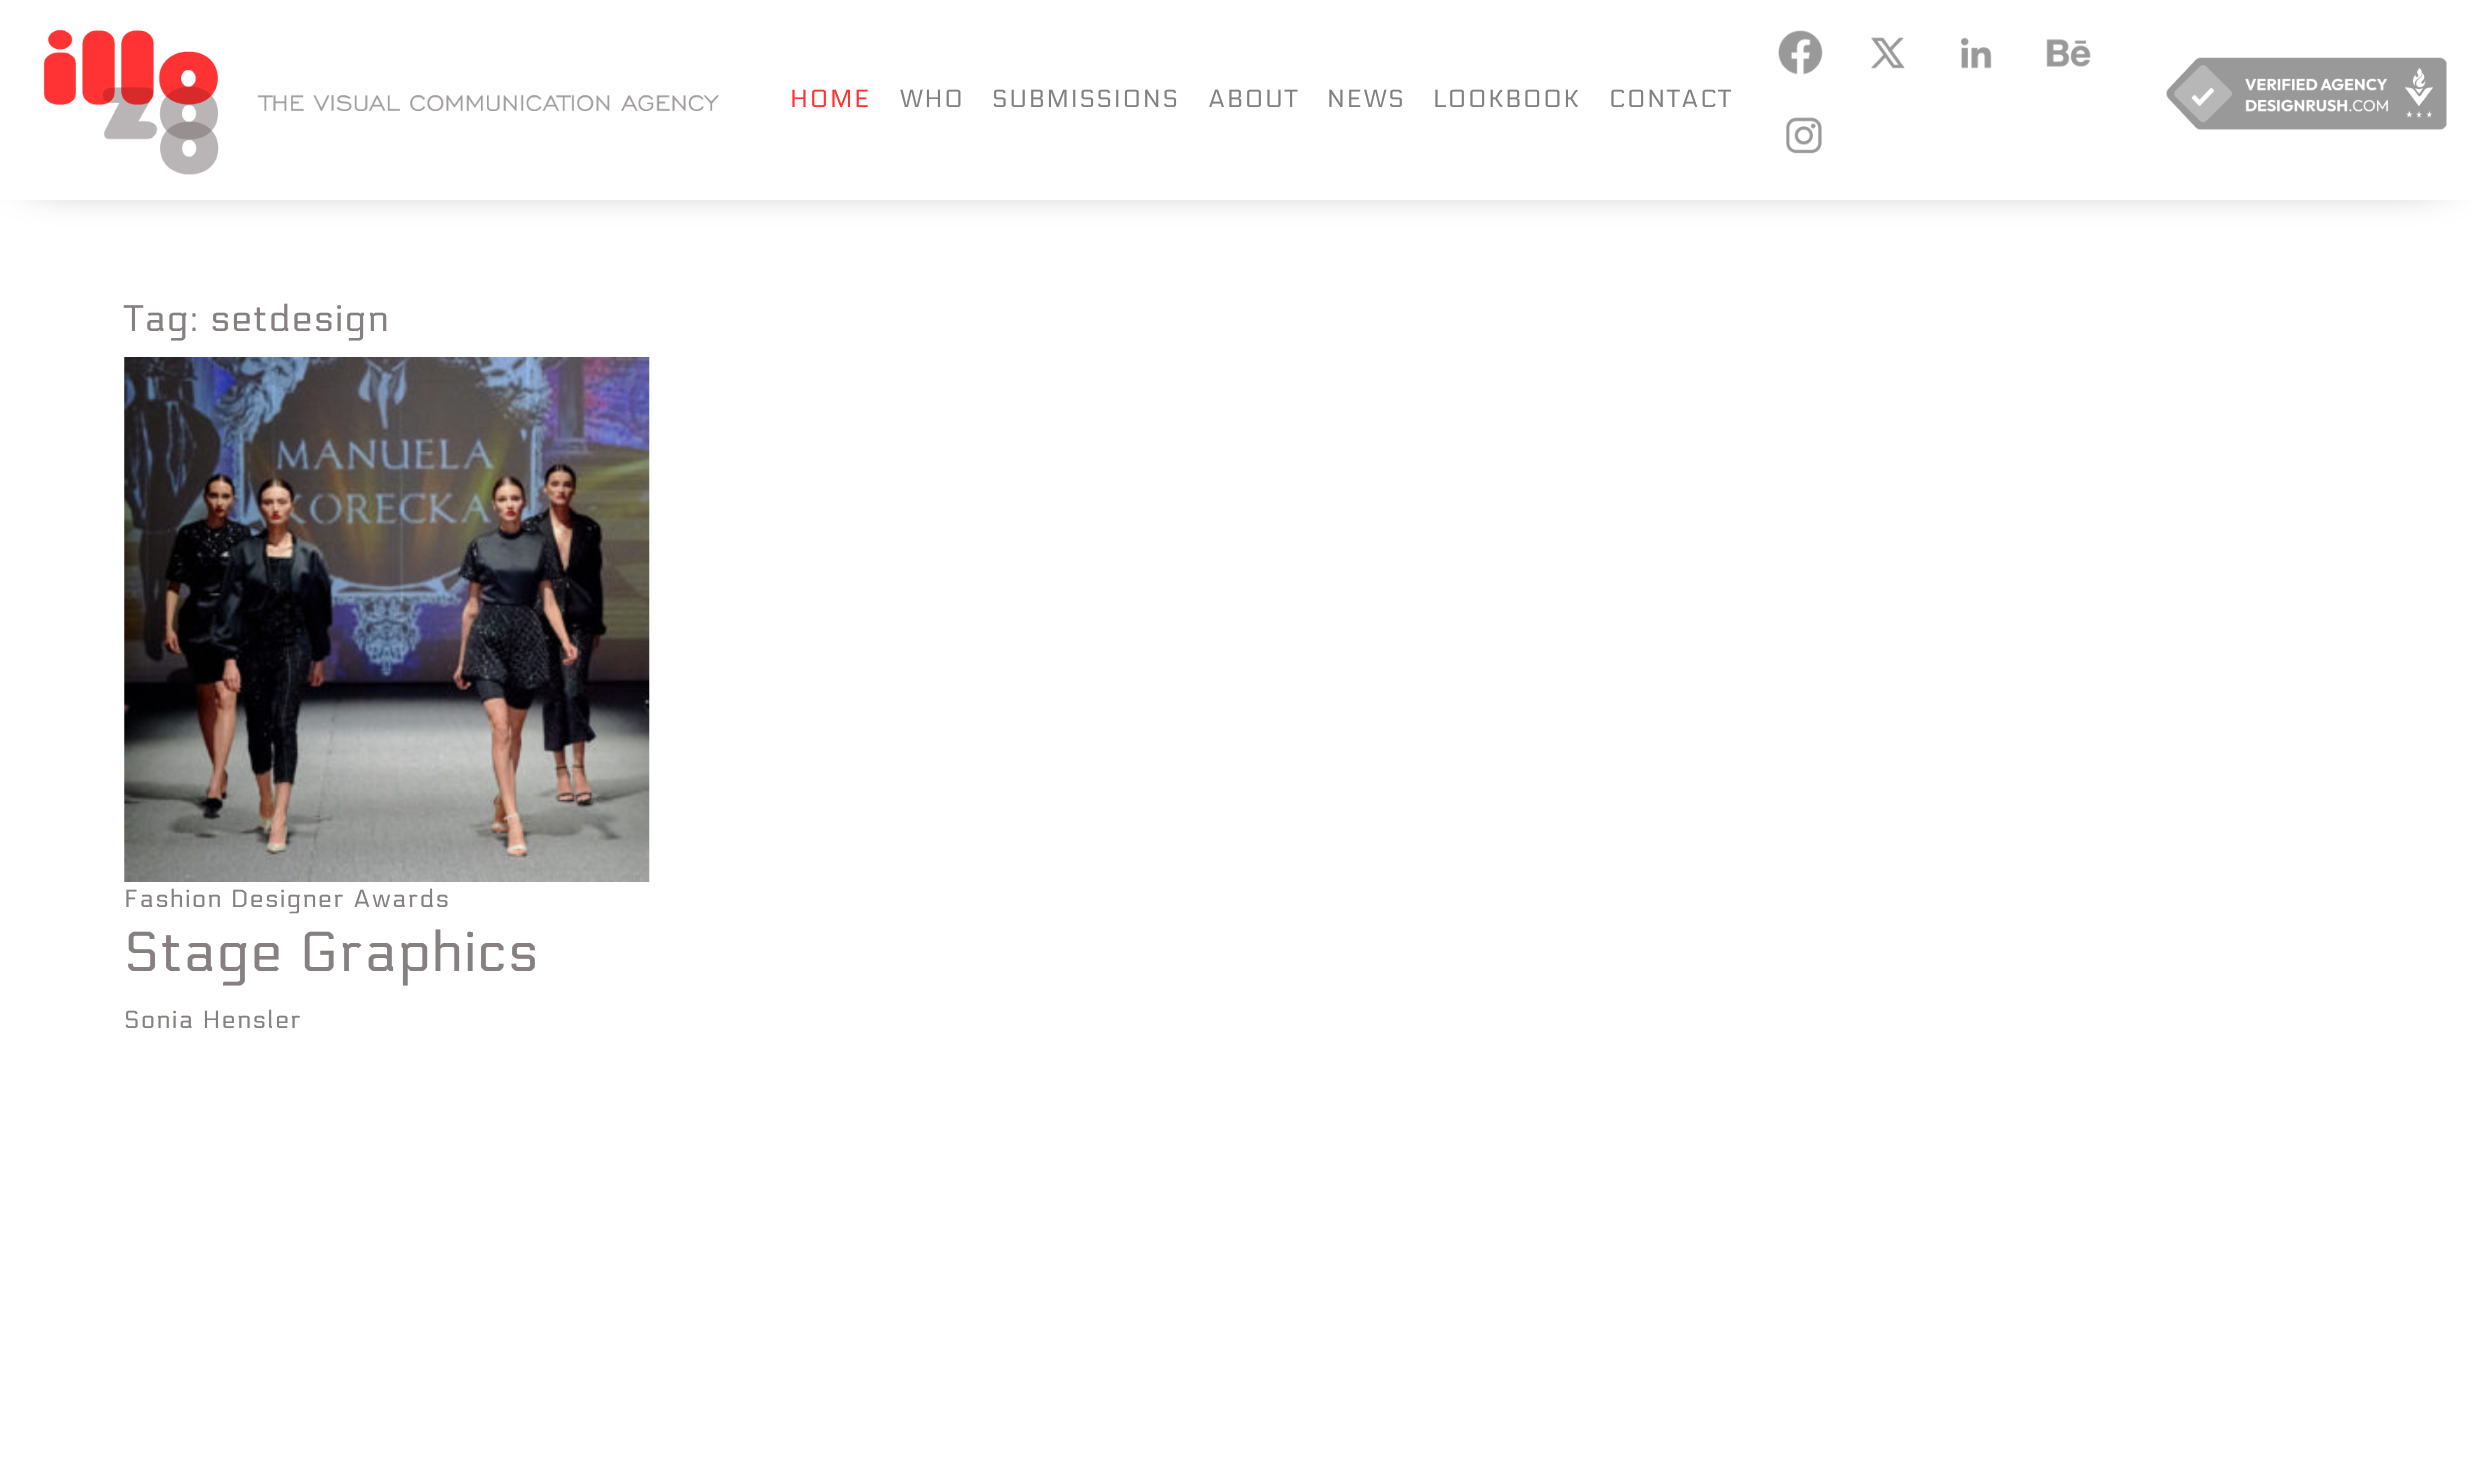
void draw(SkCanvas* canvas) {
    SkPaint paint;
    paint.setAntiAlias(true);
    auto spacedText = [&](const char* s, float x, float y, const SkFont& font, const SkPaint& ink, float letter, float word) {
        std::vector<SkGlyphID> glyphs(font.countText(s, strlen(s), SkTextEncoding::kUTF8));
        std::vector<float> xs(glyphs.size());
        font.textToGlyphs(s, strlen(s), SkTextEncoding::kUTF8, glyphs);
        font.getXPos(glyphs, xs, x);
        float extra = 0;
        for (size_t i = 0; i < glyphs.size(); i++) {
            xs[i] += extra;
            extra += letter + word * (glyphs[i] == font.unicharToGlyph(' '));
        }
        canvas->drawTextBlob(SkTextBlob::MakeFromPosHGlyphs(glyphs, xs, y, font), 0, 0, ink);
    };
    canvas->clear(0xFFFFFFFF);
    paint.setColor(0xFF000000);
    paint.setMaskFilter(SkMaskFilter::MakeBlur(kNormal_SkBlurStyle, 26));
    canvas->drawRect(SkRect::MakeXYWH(35, 35, 2405, 130), paint);
    paint.setMaskFilter(nullptr);
    paint.setColor(0xFFFFFFFF);
    canvas->drawRect(SkRect::MakeXYWH(0, 0, 2473, 200), paint);
    canvas->drawImageRect(SkImages::DeferredFromEncodedData(SkData::MakeFromFileName("img1.png")), SkRect::MakeXYWH(43, 30, 676, 145), SkSamplingOptions());
    SkFont font1(fontMgr->matchFamilyStyle("Electrolize", SkFontStyle::Normal()), 24.5f);
    font1.setSubpixel(true);
    paint.setColor(0xFFFF3334);
    spacedText("HOME", 790, 107, font1, paint, 1.75f, 0);
    paint.setColor(0xFF808080);
    spacedText("WHO", 900, 107, font1, paint, 1.75f, 0);
    spacedText("SUBMISSIONS", 992, 107, font1, paint, 1.75f, 0);
    spacedText("ABOUT", 1208, 107, font1, paint, 1.75f, 0);
    spacedText("NEWS", 1327, 107, font1, paint, 1.75f, 0);
    spacedText("LOOKBOOK", 1433, 107, font1, paint, 1.75f, 0);
    spacedText("CONTACT", 1609, 107, font1, paint, 1.75f, 0);
    canvas->drawImageRect(SkImages::DeferredFromEncodedData(SkData::MakeFromFileName("img2.png")), SkRect::MakeXYWH(1778, 30, 45, 45), SkSamplingOptions());
    canvas->drawImageRect(SkImages::DeferredFromEncodedData(SkData::MakeFromFileName("img3.png")), SkRect::MakeXYWH(1871, 37, 34, 32), SkSamplingOptions());
    canvas->drawImageRect(SkImages::DeferredFromEncodedData(SkData::MakeFromFileName("img4.png")), SkRect::MakeXYWH(1961, 37, 31, 32), SkSamplingOptions());
    canvas->drawImageRect(SkImages::DeferredFromEncodedData(SkData::MakeFromFileName("img5.png")), SkRect::MakeXYWH(2046, 39, 45, 28), SkSamplingOptions());
    canvas->drawImageRect(SkImages::DeferredFromEncodedData(SkData::MakeFromFileName("img6.png")), SkRect::MakeXYWH(1786, 117, 41, 41), SkSamplingOptions());
    canvas->drawImageRect(SkImages::DeferredFromEncodedData(SkData::MakeFromFileName("img7.png")), SkRect::MakeXYWH(2166, 57, 281, 73), SkSamplingOptions());
    SkFont font2(fontMgr->matchFamilyStyle("Electrolize", SkFontStyle::Normal()), 36.75f);
    font2.setSubpixel(true);
    paint.setColor(0xFF868080);
    spacedText("Tag: setdesign", 124, 331, font2, paint, 1.75f, 0);
    canvas->drawImageRect(SkImages::DeferredFromEncodedData(SkData::MakeFromFileName("img8.png")), SkRect::MakeXYWH(124, 357, 526, 525), SkSamplingOptions());
    spacedText("Fashion Designer Awards", 124, 907, font1, paint, 1.75f, 0);
    SkFont font3(fontMgr->matchFamilyStyle("Electrolize", SkFontStyle::Normal()), 56);
    font3.setSubpixel(true);
    spacedText("Stage Graphics", 124, 971, font3, paint, 1.75f, 0);
    spacedText("Sonia Hensler", 124, 1028, font1, paint, 1.75f, 0);
}
